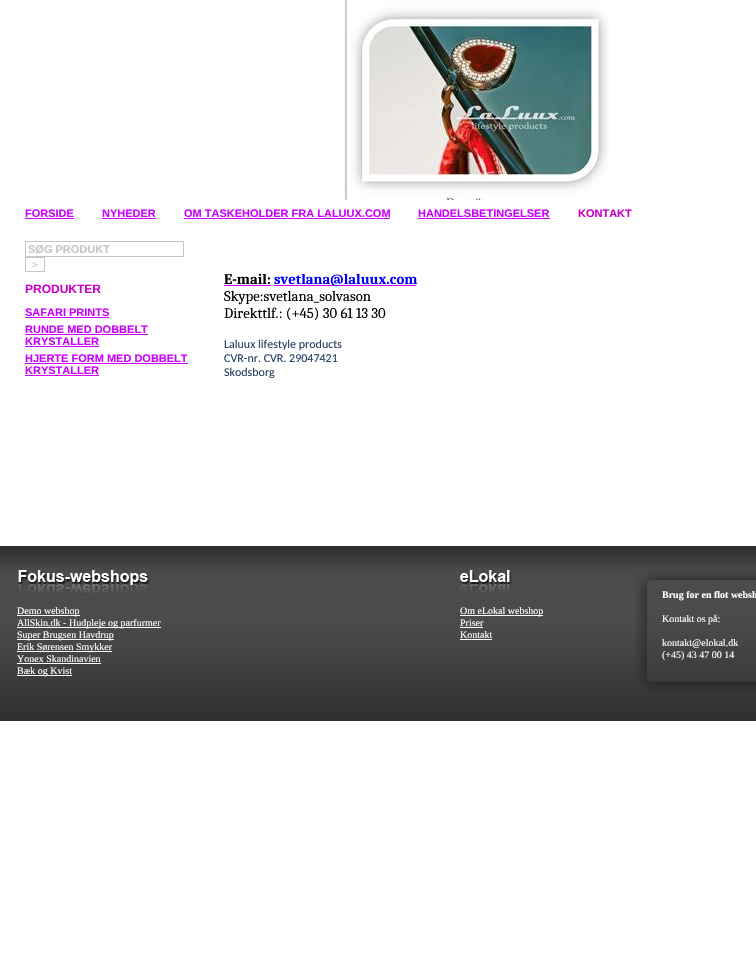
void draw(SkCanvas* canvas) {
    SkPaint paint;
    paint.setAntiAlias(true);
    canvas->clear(0xFFFFFFFF);
    canvas->drawImageRect(SkImages::DeferredFromEncodedData(SkData::MakeFromFileName("img1.png")), SkRect::MakeXYWH(343, 0, 266, 200), SkSamplingOptions());
    SkFont font1(fontMgr->matchFamilyStyle("Liberation Sans", SkFontStyle::Bold()), 11);
    font1.setSubpixel(true);
    paint.setColor(0xFFCC00FF);
    canvas->drawString("FORSIDE", 25, 217, font1, paint);
    canvas->drawRect(SkRect::MakeXYWH(25, 218, 49, 1), paint);
    canvas->drawString("NYHEDER", 102, 217, font1, paint);
    canvas->drawRect(SkRect::MakeXYWH(102, 218, 54, 1), paint);
    canvas->drawString("OM TASKEHOLDER FRA LALUUX.COM", 184, 217, font1, paint);
    canvas->drawRect(SkRect::MakeXYWH(184, 218, 206, 1), paint);
    canvas->drawString("HANDELSBETINGELSER", 418, 217, font1, paint);
    canvas->drawRect(SkRect::MakeXYWH(418, 218, 132, 1), paint);
    paint.setColor(0xFFCC00CC);
    canvas->drawString("KONTAKT", 578, 217, font1, paint);
    paint.setStyle(SkPaint::kStroke_Style);
    paint.setStrokeWidth(1);
    paint.setColor(0xFFC5C5C5);
    canvas->drawRect(SkRect::MakeXYWH(25.5f, 241.5f, 158, 15), paint);
    paint.setStyle(SkPaint::kFill_Style);
    canvas->drawString("SØG PRODUKT", 28, 253, font1, paint);
    paint.setStyle(SkPaint::kStroke_Style);
    canvas->drawRect(SkRect::MakeXYWH(25.5f, 257.5f, 19, 14), paint);
    SkFont font2(fontMgr->matchFamilyStyle("Liberation Sans", SkFontStyle::Normal()), 10);
    font2.setSubpixel(true);
    paint.setStyle(SkPaint::kFill_Style);
    canvas->drawString(">", 32, 268, font2, paint);
    SkFont font3(fontMgr->matchFamilyStyle("Liberation Sans", SkFontStyle::Bold()), 12);
    font3.setSubpixel(true);
    paint.setColor(0xFFCC00CC);
    canvas->drawString("PRODUKTER", 25, 293, font3, paint);
    paint.setColor(0xFFCC00FF);
    canvas->drawString("SAFARI PRINTS", 25, 316, font1, paint);
    canvas->drawRect(SkRect::MakeXYWH(25, 317, 84, 1), paint);
    canvas->drawString("RUNDE MED DOBBELT", 25, 333, font1, paint);
    canvas->drawRect(SkRect::MakeXYWH(25, 334, 123, 1), paint);
    canvas->drawString("KRYSTALLER", 25, 345, font1, paint);
    canvas->drawRect(SkRect::MakeXYWH(25, 346, 74, 1), paint);
    canvas->drawString("HJERTE FORM MED DOBBELT", 25, 362, font1, paint);
    canvas->drawRect(SkRect::MakeXYWH(25, 363, 163, 1), paint);
    canvas->drawString("KRYSTALLER", 25, 374, font1, paint);
    canvas->drawRect(SkRect::MakeXYWH(25, 375, 74, 1), paint);
    SkFont font4(fontMgr->matchFamilyStyle("Caladea", SkFontStyle::Bold()), 14.75f);
    font4.setSubpixel(true);
    paint.setColor(0xFF000000);
    canvas->drawString("E-mail:", 224, 284, font4, paint);
    paint.setColor(0xFFCC00FF);
    canvas->drawRect(SkRect::MakeXYWH(224, 285, 47, 1), paint);
    canvas->drawRect(SkRect::MakeXYWH(274, 285, 142, 1), paint);
    paint.setColor(0xFF0000FF);
    canvas->drawString("svetlana@laluux.com", 274, 284, font4, paint);
    SkFont font5(fontMgr->matchFamilyStyle("Caladea", SkFontStyle::Normal()), 14.75f);
    font5.setSubpixel(true);
    paint.setColor(0xFF000000);
    canvas->drawString("Skype:svetlana_solvason", 224, 301, font5, paint);
    canvas->drawString("Direkttlf.: (+45) 30 61 13 30", 224, 318, font5, paint);
    SkFont font6(fontMgr->matchFamilyStyle("Carlito", SkFontStyle::Normal()), 12);
    font6.setSubpixel(true);
    paint.setColor(0xFF244061);
    canvas->drawString("Laluux lifestyle products", 224, 348, font6, paint);
    canvas->drawString("CVR-nr. CVR. 29047421", 224, 362, font6, paint);
    canvas->drawString("Skodsborg", 224, 376, font6, paint);
    canvas->drawImageRect(SkImages::DeferredFromEncodedData(SkData::MakeFromFileName("img2.png")), SkRect::MakeXYWH(0, 546, 756, 175), SkSamplingOptions());
    canvas->drawImageRect(SkImages::DeferredFromEncodedData(SkData::MakeFromFileName("img3.png")), SkRect::MakeXYWH(18, 570, 132, 25), SkSamplingOptions());
    canvas->drawImageRect(SkImages::DeferredFromEncodedData(SkData::MakeFromFileName("img4.png")), SkRect::MakeXYWH(460, 570, 52, 24), SkSamplingOptions());
    paint.setColor(0xFFFFFFFF);
    canvas->drawRect(SkRect::MakeXYWH(17, 615, 63, 1), paint);
    SkFont font7(fontMgr->matchFamilyStyle("Liberation Serif", SkFontStyle::Normal()), 10);
    font7.setSubpixel(true);
    canvas->drawString("Demo webshop", 17, 614, font7, paint);
    canvas->drawRect(SkRect::MakeXYWH(17, 627, 144, 1), paint);
    canvas->drawString("AllSkin.dk - Hudpleje og parfurmer", 17, 626, font7, paint);
    canvas->drawRect(SkRect::MakeXYWH(17, 639, 97, 1), paint);
    canvas->drawString("Super Brugsen Havdrup", 17, 638, font7, paint);
    canvas->drawRect(SkRect::MakeXYWH(17, 651, 95, 1), paint);
    canvas->drawString("Erik Sørensen Smykker", 17, 650, font7, paint);
    canvas->drawString("Yonex Skandinavien", 17, 662, font7, paint);
    canvas->drawRect(SkRect::MakeXYWH(17, 663, 84, 1), paint);
    canvas->drawRect(SkRect::MakeXYWH(17, 675, 55, 1), paint);
    canvas->drawString("Bæk og Kvist", 17, 674, font7, paint);
    canvas->drawRect(SkRect::MakeXYWH(460, 615, 83, 1), paint);
    canvas->drawString("Om eLokal webshop", 460, 614, font7, paint);
    canvas->drawString("Priser", 460, 626, font7, paint);
    canvas->drawRect(SkRect::MakeXYWH(460, 627, 23, 1), paint);
    canvas->drawString("Kontakt", 460, 638, font7, paint);
    canvas->drawRect(SkRect::MakeXYWH(460, 639, 32, 1), paint);
    canvas->drawImageRect(SkImages::DeferredFromEncodedData(SkData::MakeFromFileName("img5.png")), SkRect::MakeXYWH(636, 569, 120, 123), SkSamplingOptions());
    SkFont font8(fontMgr->matchFamilyStyle("Liberation Serif", SkFontStyle::Bold()), 10);
    font8.setSubpixel(true);
    canvas->drawString("Brug for en flot websh", 662, 598, font8, paint);
    canvas->drawString("Kontakt os på:", 662, 622, font7, paint);
    canvas->drawString("kontakt@elokal.dk", 662, 646, font7, paint);
    canvas->drawString("(+45) 43 47 00 14", 662, 658, font7, paint);
}
